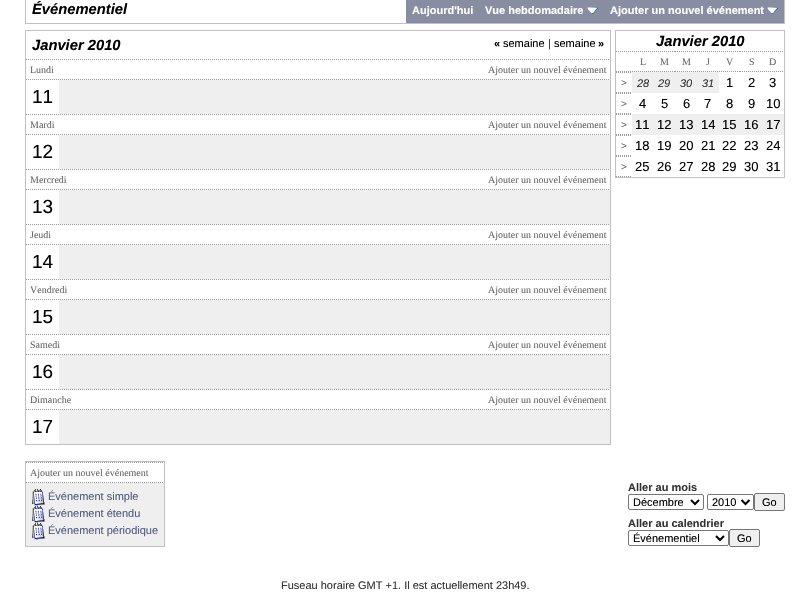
void draw(SkCanvas* canvas) {
    SkPaint paint;
    paint.setAntiAlias(true);
    canvas->clear(0xFFFFFFFF);
    paint.setStyle(SkPaint::kStroke_Style);
    paint.setStrokeWidth(1);
    paint.setColor(0xFFC0C0C0);
    canvas->drawRect(SkRect::MakeXYWH(25.5f, -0.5f, 759, 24), paint);
    SkFont font1(fontMgr->matchFamilyStyle("Liberation Sans", SkFontStyle::BoldItalic()), 14.75f);
    font1.setSubpixel(true);
    paint.setStyle(SkPaint::kFill_Style);
    paint.setColor(0xFF000000);
    canvas->drawString("Événementiel", 32, 14, font1, paint);
    paint.setColor(0xFF898DA2);
    canvas->drawRect(SkRect::MakeXYWH(406, 0, 378, 23), paint);
    SkFont font2(fontMgr->matchFamilyStyle("Liberation Sans", SkFontStyle::Bold()), 11);
    font2.setSubpixel(true);
    paint.setColor(0xFFFFFFFF);
    canvas->drawString("Aujourd'hui", 412, 14, font2, paint);
    canvas->drawString("Vue hebdomadaire", 485, 14, font2, paint);
    canvas->drawImageRect(SkImages::DeferredFromEncodedData(SkData::MakeFromFileName("img1.png")), SkRect::MakeXYWH(587, 7, 11, 7), SkSamplingOptions());
    canvas->drawString("Ajouter un nouvel événement", 610, 14, font2, paint);
    canvas->drawImageRect(SkImages::DeferredFromEncodedData(SkData::MakeFromFileName("img1.png")), SkRect::MakeXYWH(767, 7, 11, 7), SkSamplingOptions());
    paint.setStyle(SkPaint::kStroke_Style);
    paint.setColor(0xFFC0C0C0);
    canvas->drawRect(SkRect::MakeXYWH(25.5f, 30.5f, 585, 414), paint);
    paint.setStyle(SkPaint::kFill_Style);
    paint.setColor(0xFF000000);
    canvas->drawString("Janvier 2010", 32, 50, font1, paint);
    canvas->drawString("«", 494, 47, font2, paint);
    SkFont font3(fontMgr->matchFamilyStyle("Liberation Sans", SkFontStyle::Normal()), 11);
    font3.setSubpixel(true);
    canvas->drawString("semaine", 503, 47, font3, paint);
    paint.setColor(0xFF333333);
    canvas->drawString("|", 548, 47, font3, paint);
    paint.setColor(0xFF000000);
    canvas->drawString("semaine", 554, 47, font3, paint);
    canvas->drawString("»", 598, 47, font2, paint);
    paint.setStyle(SkPaint::kStroke_Style);
    paint.setColor(0xFF999999);
    paint.setPathEffect(SkDashPathEffect::Make({{1, 1}}, 0));
    canvas->drawPath(SkPathBuilder().moveTo(26, 59.5f).lineTo(610, 59.5f).detach(), paint);
    paint.setPathEffect(nullptr);
    paint.setPathEffect(SkDashPathEffect::Make({{1, 1}}, 0));
    canvas->drawPath(SkPathBuilder().moveTo(26, 79.5f).lineTo(610, 79.5f).detach(), paint);
    paint.setPathEffect(nullptr);
    SkFont font4(fontMgr->matchFamilyStyle("Liberation Serif", SkFontStyle::Normal()), 10);
    font4.setSubpixel(true);
    paint.setStyle(SkPaint::kFill_Style);
    paint.setColor(0xFF666666);
    canvas->drawString("Lundi", 30, 73, font4, paint);
    canvas->drawString("Ajouter un nouvel événement", 488, 73, font4, paint);
    SkFont font5(fontMgr->matchFamilyStyle("Liberation Sans", SkFontStyle::Normal()), 19);
    font5.setSubpixel(true);
    paint.setColor(0xFF000000);
    canvas->drawString("11", 32, 103, font5, paint);
    paint.setColor(0xFFEFEFEF);
    canvas->drawRect(SkRect::MakeXYWH(59, 80, 551, 34), paint);
    paint.setStyle(SkPaint::kStroke_Style);
    paint.setColor(0xFF999999);
    paint.setPathEffect(SkDashPathEffect::Make({{1, 1}}, 0));
    canvas->drawPath(SkPathBuilder().moveTo(26, 114.5f).lineTo(610, 114.5f).detach(), paint);
    paint.setPathEffect(nullptr);
    paint.setPathEffect(SkDashPathEffect::Make({{1, 1}}, 0));
    canvas->drawPath(SkPathBuilder().moveTo(26, 134.5f).lineTo(610, 134.5f).detach(), paint);
    paint.setPathEffect(nullptr);
    paint.setStyle(SkPaint::kFill_Style);
    paint.setColor(0xFF666666);
    canvas->drawString("Mardi", 30, 128, font4, paint);
    canvas->drawString("Ajouter un nouvel événement", 488, 128, font4, paint);
    paint.setColor(0xFF000000);
    canvas->drawString("12", 32, 158, font5, paint);
    paint.setColor(0xFFEFEFEF);
    canvas->drawRect(SkRect::MakeXYWH(59, 135, 551, 34), paint);
    paint.setStyle(SkPaint::kStroke_Style);
    paint.setColor(0xFF999999);
    paint.setPathEffect(SkDashPathEffect::Make({{1, 1}}, 0));
    canvas->drawPath(SkPathBuilder().moveTo(26, 169.5f).lineTo(610, 169.5f).detach(), paint);
    paint.setPathEffect(nullptr);
    paint.setPathEffect(SkDashPathEffect::Make({{1, 1}}, 0));
    canvas->drawPath(SkPathBuilder().moveTo(26, 189.5f).lineTo(610, 189.5f).detach(), paint);
    paint.setPathEffect(nullptr);
    paint.setStyle(SkPaint::kFill_Style);
    paint.setColor(0xFF666666);
    canvas->drawString("Mercredi", 30, 183, font4, paint);
    canvas->drawString("Ajouter un nouvel événement", 488, 183, font4, paint);
    paint.setColor(0xFF000000);
    canvas->drawString("13", 32, 213, font5, paint);
    paint.setColor(0xFFEFEFEF);
    canvas->drawRect(SkRect::MakeXYWH(59, 190, 551, 34), paint);
    paint.setStyle(SkPaint::kStroke_Style);
    paint.setColor(0xFF999999);
    paint.setPathEffect(SkDashPathEffect::Make({{1, 1}}, 0));
    canvas->drawPath(SkPathBuilder().moveTo(26, 224.5f).lineTo(610, 224.5f).detach(), paint);
    paint.setPathEffect(nullptr);
    paint.setPathEffect(SkDashPathEffect::Make({{1, 1}}, 0));
    canvas->drawPath(SkPathBuilder().moveTo(26, 244.5f).lineTo(610, 244.5f).detach(), paint);
    paint.setPathEffect(nullptr);
    paint.setStyle(SkPaint::kFill_Style);
    paint.setColor(0xFF666666);
    canvas->drawString("Jeudi", 30, 238, font4, paint);
    canvas->drawString("Ajouter un nouvel événement", 488, 238, font4, paint);
    paint.setColor(0xFF000000);
    canvas->drawString("14", 32, 268, font5, paint);
    paint.setColor(0xFFEFEFEF);
    canvas->drawRect(SkRect::MakeXYWH(59, 245, 551, 34), paint);
    paint.setStyle(SkPaint::kStroke_Style);
    paint.setColor(0xFF999999);
    paint.setPathEffect(SkDashPathEffect::Make({{1, 1}}, 0));
    canvas->drawPath(SkPathBuilder().moveTo(26, 279.5f).lineTo(610, 279.5f).detach(), paint);
    paint.setPathEffect(nullptr);
    paint.setPathEffect(SkDashPathEffect::Make({{1, 1}}, 0));
    canvas->drawPath(SkPathBuilder().moveTo(26, 299.5f).lineTo(610, 299.5f).detach(), paint);
    paint.setPathEffect(nullptr);
    paint.setStyle(SkPaint::kFill_Style);
    paint.setColor(0xFF666666);
    canvas->drawString("Vendredi", 30, 293, font4, paint);
    canvas->drawString("Ajouter un nouvel événement", 488, 293, font4, paint);
    paint.setColor(0xFF000000);
    canvas->drawString("15", 32, 323, font5, paint);
    paint.setColor(0xFFEFEFEF);
    canvas->drawRect(SkRect::MakeXYWH(59, 300, 551, 34), paint);
    paint.setStyle(SkPaint::kStroke_Style);
    paint.setColor(0xFF999999);
    paint.setPathEffect(SkDashPathEffect::Make({{1, 1}}, 0));
    canvas->drawPath(SkPathBuilder().moveTo(26, 334.5f).lineTo(610, 334.5f).detach(), paint);
    paint.setPathEffect(nullptr);
    paint.setPathEffect(SkDashPathEffect::Make({{1, 1}}, 0));
    canvas->drawPath(SkPathBuilder().moveTo(26, 354.5f).lineTo(610, 354.5f).detach(), paint);
    paint.setPathEffect(nullptr);
    paint.setStyle(SkPaint::kFill_Style);
    paint.setColor(0xFF666666);
    canvas->drawString("Samedi", 30, 348, font4, paint);
    canvas->drawString("Ajouter un nouvel événement", 488, 348, font4, paint);
    paint.setColor(0xFF000000);
    canvas->drawString("16", 32, 378, font5, paint);
    paint.setColor(0xFFEFEFEF);
    canvas->drawRect(SkRect::MakeXYWH(59, 355, 551, 34), paint);
    paint.setStyle(SkPaint::kStroke_Style);
    paint.setColor(0xFF999999);
    paint.setPathEffect(SkDashPathEffect::Make({{1, 1}}, 0));
    canvas->drawPath(SkPathBuilder().moveTo(26, 389.5f).lineTo(610, 389.5f).detach(), paint);
    paint.setPathEffect(nullptr);
    paint.setPathEffect(SkDashPathEffect::Make({{1, 1}}, 0));
    canvas->drawPath(SkPathBuilder().moveTo(26, 409.5f).lineTo(610, 409.5f).detach(), paint);
    paint.setPathEffect(nullptr);
    paint.setStyle(SkPaint::kFill_Style);
    paint.setColor(0xFF666666);
    canvas->drawString("Dimanche", 30, 403, font4, paint);
    canvas->drawString("Ajouter un nouvel événement", 488, 403, font4, paint);
    paint.setColor(0xFF000000);
    canvas->drawString("17", 32, 433, font5, paint);
    paint.setColor(0xFFEFEFEF);
    canvas->drawRect(SkRect::MakeXYWH(59, 410, 551, 34), paint);
    paint.setStyle(SkPaint::kStroke_Style);
    paint.setColor(0xFFC0C0C0);
    canvas->drawRect(SkRect::MakeXYWH(615.5f, 30.5f, 169, 147), paint);
    paint.setStyle(SkPaint::kFill_Style);
    paint.setColor(0xFF000000);
    canvas->drawString("Janvier 2010", 656, 46, font1, paint);
    paint.setStyle(SkPaint::kStroke_Style);
    paint.setColor(0xFF999999);
    paint.setPathEffect(SkDashPathEffect::Make({{1, 1}}, 0));
    canvas->drawPath(SkPathBuilder().moveTo(616, 51.5f).lineTo(632, 51.5f).moveTo(616, 71.5f).lineTo(632, 71.5f).moveTo(632, 51.5f).lineTo(654, 51.5f).moveTo(632, 71.5f).lineTo(654, 71.5f).moveTo(654, 51.5f).lineTo(675, 51.5f).moveTo(654, 71.5f).lineTo(675, 71.5f).detach(), paint);
    paint.setPathEffect(nullptr);
    paint.setStyle(SkPaint::kFill_Style);
    paint.setColor(0xFF666666);
    canvas->drawString("L", 640, 65, font4, paint);
    canvas->drawString("M", 660, 65, font4, paint);
    paint.setStyle(SkPaint::kStroke_Style);
    paint.setColor(0xFF999999);
    paint.setPathEffect(SkDashPathEffect::Make({{1, 1}}, 0));
    canvas->drawPath(SkPathBuilder().moveTo(675, 51.5f).lineTo(697, 51.5f).moveTo(675, 71.5f).lineTo(697, 71.5f).moveTo(697, 51.5f).lineTo(719, 51.5f).moveTo(697, 71.5f).lineTo(719, 71.5f).detach(), paint);
    paint.setPathEffect(nullptr);
    paint.setStyle(SkPaint::kFill_Style);
    paint.setColor(0xFF666666);
    canvas->drawString("M", 682, 65, font4, paint);
    canvas->drawString("J", 706, 65, font4, paint);
    paint.setStyle(SkPaint::kStroke_Style);
    paint.setColor(0xFF999999);
    paint.setPathEffect(SkDashPathEffect::Make({{1, 1}}, 0));
    canvas->drawPath(SkPathBuilder().moveTo(719, 51.5f).lineTo(740, 51.5f).moveTo(719, 71.5f).lineTo(740, 71.5f).moveTo(740, 51.5f).lineTo(762, 51.5f).moveTo(740, 71.5f).lineTo(762, 71.5f).detach(), paint);
    paint.setPathEffect(nullptr);
    paint.setStyle(SkPaint::kFill_Style);
    paint.setColor(0xFF666666);
    canvas->drawString("V", 726, 65, font4, paint);
    canvas->drawString("S", 749, 65, font4, paint);
    paint.setStyle(SkPaint::kStroke_Style);
    paint.setColor(0xFF999999);
    paint.setPathEffect(SkDashPathEffect::Make({{1, 1}}, 0));
    canvas->drawPath(SkPathBuilder().moveTo(762, 51.5f).lineTo(784, 51.5f).moveTo(762, 71.5f).lineTo(784, 71.5f).detach(), paint);
    paint.setPathEffect(nullptr);
    paint.setStyle(SkPaint::kFill_Style);
    paint.setColor(0xFF666666);
    canvas->drawString("D", 769, 65, font4, paint);
    paint.setStyle(SkPaint::kStroke_Style);
    paint.setColor(0xFF999999);
    paint.setPathEffect(SkDashPathEffect::Make({{1, 1}}, 0));
    canvas->drawPath(SkPathBuilder().moveTo(616, 72.5f).lineTo(632, 72.5f).moveTo(616, 92.5f).lineTo(632, 92.5f).detach(), paint);
    paint.setPathEffect(nullptr);
    SkFont font6(fontMgr->matchFamilyStyle("Liberation Sans", SkFontStyle::Normal()), 10);
    font6.setSubpixel(true);
    paint.setStyle(SkPaint::kFill_Style);
    paint.setColor(0xFF666666);
    canvas->drawString(">", 621, 86, font6, paint);
    paint.setColor(0xFFEFEFEF);
    canvas->drawRect(SkRect::MakeXYWH(632, 72, 87, 21), paint);
    SkFont font7(fontMgr->matchFamilyStyle("Liberation Sans", SkFontStyle::Italic()), 11);
    font7.setSubpixel(true);
    paint.setColor(0xFF333333);
    canvas->drawString("28", 637, 87, font7, paint);
    canvas->drawString("29", 658, 87, font7, paint);
    canvas->drawString("30", 680, 87, font7, paint);
    canvas->drawString("31", 702, 87, font7, paint);
    SkFont font8(fontMgr->matchFamilyStyle("Liberation Sans", SkFontStyle::Normal()), 13);
    font8.setSubpixel(true);
    paint.setColor(0xFF000000);
    canvas->drawString("1", 726, 87, font8, paint);
    canvas->drawString("2", 748, 87, font8, paint);
    canvas->drawString("3", 769, 87, font8, paint);
    paint.setStyle(SkPaint::kStroke_Style);
    paint.setColor(0xFF999999);
    paint.setPathEffect(SkDashPathEffect::Make({{1, 1}}, 0));
    canvas->drawPath(SkPathBuilder().moveTo(616, 93.5f).lineTo(632, 93.5f).moveTo(616, 113.5f).lineTo(632, 113.5f).moveTo(616, 114.5f).lineTo(632, 114.5f).moveTo(616, 134.5f).lineTo(632, 134.5f).detach(), paint);
    paint.setPathEffect(nullptr);
    paint.setStyle(SkPaint::kFill_Style);
    paint.setColor(0xFF666666);
    canvas->drawString(">", 621, 107, font6, paint);
    paint.setColor(0xFF000000);
    canvas->drawString("4", 639, 108, font8, paint);
    canvas->drawString("5", 661, 108, font8, paint);
    canvas->drawString("6", 683, 108, font8, paint);
    canvas->drawString("7", 704, 108, font8, paint);
    canvas->drawString("8", 726, 108, font8, paint);
    canvas->drawString("9", 748, 108, font8, paint);
    canvas->drawString("10", 766, 108, font8, paint);
    paint.setColor(0xFF666666);
    canvas->drawString(">", 621, 128, font6, paint);
    paint.setColor(0xFFEFEFEF);
    canvas->drawRect(SkRect::MakeXYWH(632, 114, 152, 21), paint);
    paint.setColor(0xFF000000);
    canvas->drawString("11", 635, 129, font8, paint);
    canvas->drawString("12", 657, 129, font8, paint);
    canvas->drawString("13", 679, 129, font8, paint);
    canvas->drawString("14", 701, 129, font8, paint);
    canvas->drawString("15", 722, 129, font8, paint);
    canvas->drawString("16", 744, 129, font8, paint);
    canvas->drawString("17", 766, 129, font8, paint);
    paint.setStyle(SkPaint::kStroke_Style);
    paint.setColor(0xFF999999);
    paint.setPathEffect(SkDashPathEffect::Make({{1, 1}}, 0));
    canvas->drawPath(SkPathBuilder().moveTo(616, 135.5f).lineTo(632, 135.5f).moveTo(616, 155.5f).lineTo(632, 155.5f).moveTo(616, 156.5f).lineTo(632, 156.5f).moveTo(616, 176.5f).lineTo(632, 176.5f).detach(), paint);
    paint.setPathEffect(nullptr);
    paint.setStyle(SkPaint::kFill_Style);
    paint.setColor(0xFF666666);
    canvas->drawString(">", 621, 149, font6, paint);
    paint.setColor(0xFF000000);
    canvas->drawString("18", 635, 150, font8, paint);
    canvas->drawString("19", 657, 150, font8, paint);
    canvas->drawString("20", 679, 150, font8, paint);
    canvas->drawString("21", 701, 150, font8, paint);
    canvas->drawString("22", 722, 150, font8, paint);
    canvas->drawString("23", 744, 150, font8, paint);
    canvas->drawString("24", 766, 150, font8, paint);
    paint.setColor(0xFF666666);
    canvas->drawString(">", 621, 170, font6, paint);
    paint.setColor(0xFF000000);
    canvas->drawString("25", 635, 171, font8, paint);
    canvas->drawString("26", 657, 171, font8, paint);
    canvas->drawString("27", 679, 171, font8, paint);
    canvas->drawString("28", 701, 171, font8, paint);
    canvas->drawString("29", 722, 171, font8, paint);
    canvas->drawString("30", 744, 171, font8, paint);
    canvas->drawString("31", 766, 171, font8, paint);
    paint.setStyle(SkPaint::kStroke_Style);
    paint.setColor(0xFFC0C0C0);
    canvas->drawRect(SkRect::MakeXYWH(25.5f, 461.5f, 139, 85), paint);
    paint.setColor(0xFF999999);
    paint.setPathEffect(SkDashPathEffect::Make({{1, 1}}, 0));
    canvas->drawPath(SkPathBuilder().moveTo(26, 462.5f).lineTo(164, 462.5f).detach(), paint);
    paint.setPathEffect(nullptr);
    paint.setPathEffect(SkDashPathEffect::Make({{1, 1}}, 0));
    canvas->drawPath(SkPathBuilder().moveTo(26, 482.5f).lineTo(164, 482.5f).detach(), paint);
    paint.setPathEffect(nullptr);
    paint.setStyle(SkPaint::kFill_Style);
    paint.setColor(0xFF666666);
    canvas->drawString("Ajouter un nouvel événement", 30, 476, font4, paint);
    paint.setColor(0xFFEFEFEF);
    canvas->drawRect(SkRect::MakeXYWH(26, 483, 138, 63), paint);
    canvas->drawImageRect(SkImages::DeferredFromEncodedData(SkData::MakeFromFileName("img2.png")), SkRect::MakeXYWH(32, 489, 13, 17), SkSamplingOptions());
    paint.setColor(0xFF525B7F);
    canvas->drawString("Événement simple", 48, 500, font3, paint);
    canvas->drawImageRect(SkImages::DeferredFromEncodedData(SkData::MakeFromFileName("img2.png")), SkRect::MakeXYWH(32, 506, 13, 17), SkSamplingOptions());
    canvas->drawString("Événement étendu", 48, 517, font3, paint);
    canvas->drawImageRect(SkImages::DeferredFromEncodedData(SkData::MakeFromFileName("img2.png")), SkRect::MakeXYWH(32, 523, 13, 17), SkSamplingOptions());
    canvas->drawString("Événement périodique", 48, 534, font3, paint);
    paint.setColor(0xFF333333);
    canvas->drawString("Aller au mois", 628, 491, font2, paint);
    paint.setStyle(SkPaint::kStroke_Style);
    paint.setColor(0xFF767676);
    canvas->drawRoundRect(SkRect::MakeXYWH(628.5f, 494.5f, 75, 15), 1.5f, 1.5f, paint);
    paint.setStrokeWidth(2);
    paint.setColor(0xFF000000);
    canvas->drawPath(SkPathBuilder().moveTo(691, 500).lineTo(695, 504).lineTo(699, 500).detach(), paint);
    paint.setStyle(SkPaint::kFill_Style);
    canvas->drawString("Décembre", 633, 506, font3, paint);
    paint.setStyle(SkPaint::kStroke_Style);
    paint.setStrokeWidth(1);
    paint.setColor(0xFF767676);
    canvas->drawRoundRect(SkRect::MakeXYWH(707.5f, 494.5f, 46, 15), 1.5f, 1.5f, paint);
    paint.setStrokeWidth(2);
    paint.setColor(0xFF000000);
    canvas->drawPath(SkPathBuilder().moveTo(741.5f, 500).lineTo(745.5f, 504).lineTo(749.5f, 500).detach(), paint);
    paint.setStyle(SkPaint::kFill_Style);
    canvas->drawString("2010", 712, 506, font3, paint);
    paint.setColor(0xFFEFEFEF);
    canvas->drawRoundRect(SkRect::MakeXYWH(754.5f, 493.5f, 30, 17), 1.5f, 1.5f, paint);
    paint.setStyle(SkPaint::kStroke_Style);
    paint.setStrokeWidth(1);
    paint.setColor(0xFF767676);
    canvas->drawRoundRect(SkRect::MakeXYWH(754.5f, 493.5f, 30, 17), 1.5f, 1.5f, paint);
    paint.setStyle(SkPaint::kFill_Style);
    paint.setColor(0xFF000000);
    canvas->drawString("Go", 762, 506, font3, paint);
    paint.setColor(0xFF333333);
    canvas->drawString("Aller au calendrier", 628, 527, font2, paint);
    paint.setStyle(SkPaint::kStroke_Style);
    paint.setColor(0xFF767676);
    canvas->drawRoundRect(SkRect::MakeXYWH(628.5f, 530.5f, 100, 15), 1.5f, 1.5f, paint);
    paint.setStrokeWidth(2);
    paint.setColor(0xFF000000);
    canvas->drawPath(SkPathBuilder().moveTo(716, 536).lineTo(720, 540).lineTo(724, 536).detach(), paint);
    paint.setStyle(SkPaint::kFill_Style);
    canvas->drawString("Événementiel", 633, 542, font3, paint);
    paint.setColor(0xFFEFEFEF);
    canvas->drawRoundRect(SkRect::MakeXYWH(729.5f, 529.5f, 30, 17), 1.5f, 1.5f, paint);
    paint.setStyle(SkPaint::kStroke_Style);
    paint.setStrokeWidth(1);
    paint.setColor(0xFF767676);
    canvas->drawRoundRect(SkRect::MakeXYWH(729.5f, 529.5f, 30, 17), 1.5f, 1.5f, paint);
    paint.setStyle(SkPaint::kFill_Style);
    paint.setColor(0xFF000000);
    canvas->drawString("Go", 737, 542, font3, paint);
    paint.setColor(0xFF333333);
    canvas->drawString("Fuseau horaire GMT +1. Il est actuellement 23h49.", 281, 589, font3, paint);
}
